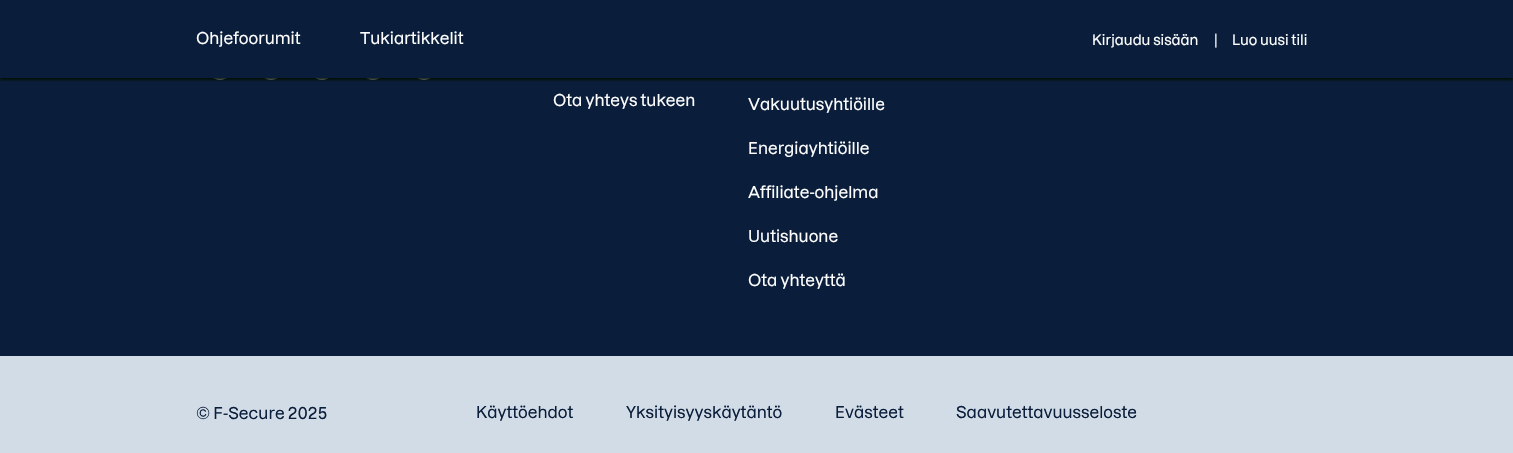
void draw(SkCanvas* canvas) {
    SkPaint paint;
    paint.setAntiAlias(true);
    canvas->clear(0xFF0A1E3C);
    canvas->drawImageRect(SkImages::DeferredFromEncodedData(SkData::MakeFromFileName("img1.png")), SkRect::MakeXYWH(213, 78, 14, 2), SkSamplingOptions());
    canvas->drawImageRect(SkImages::DeferredFromEncodedData(SkData::MakeFromFileName("img1.png")), SkRect::MakeXYWH(264, 78, 14, 2), SkSamplingOptions());
    canvas->drawImageRect(SkImages::DeferredFromEncodedData(SkData::MakeFromFileName("img1.png")), SkRect::MakeXYWH(315, 78, 14, 2), SkSamplingOptions());
    canvas->drawImageRect(SkImages::DeferredFromEncodedData(SkData::MakeFromFileName("img1.png")), SkRect::MakeXYWH(366, 78, 14, 2), SkSamplingOptions());
    canvas->drawImageRect(SkImages::DeferredFromEncodedData(SkData::MakeFromFileName("img1.png")), SkRect::MakeXYWH(417, 78, 14, 2), SkSamplingOptions());
    paint.setColor(0xFF000D00);
    paint.setMaskFilter(SkMaskFilter::MakeBlur(kNormal_SkBlurStyle, 1.5f));
    canvas->drawRect(SkRect::MakeXYWH(0, 2, 1513, 78), paint);
    paint.setMaskFilter(nullptr);
    paint.setColor(0xFF0A1E3C);
    canvas->drawRect(SkRect::MakeXYWH(0, 0, 1513, 78), paint);
    SkFont font1(fontMgr->matchFamilyStyle("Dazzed", SkFontStyle(500, SkFontStyle::kNormal_Width, SkFontStyle::kUpright_Slant)), 16);
    font1.setSubpixel(true);
    paint.setColor(0xFFFFFFFF);
    canvas->drawString("Ohjefoorumit", 196, 44, font1, paint);
    canvas->drawString("Tukiartikkelit", 360, 44, font1, paint);
    SkFont font2(fontMgr->matchFamilyStyle("Dazzed", SkFontStyle(500, SkFontStyle::kNormal_Width, SkFontStyle::kUpright_Slant)), 14);
    font2.setSubpixel(true);
    canvas->drawString("Kirjaudu sisään", 1092, 45, font2, paint);
    canvas->drawString("|", 1214, 45, font2, paint);
    canvas->drawString("Luo uusi tili", 1232, 45, font2, paint);
    canvas->drawString("Ota yhteys tukeen", 553, 106, font1, paint);
    canvas->drawString("Vakuutusyhtiöille", 748, 110, font1, paint);
    canvas->drawString("Energiayhtiöille", 748, 154, font1, paint);
    canvas->drawString("Affiliate-ohjelma", 748, 198, font1, paint);
    canvas->drawString("Uutishuone", 748, 242, font1, paint);
    canvas->drawString("Ota yhteyttä", 748, 286, font1, paint);
    paint.setColor(0xFFD2DCE6);
    canvas->drawRect(SkRect::MakeXYWH(0, 356, 1513, 97), paint);
    paint.setColor(0xFF0A1E3C);
    canvas->drawString("© F-Secure 2025", 196, 419, font1, paint);
    canvas->drawString("Käyttöehdot", 476, 418, font1, paint);
    canvas->drawString("Yksityisyyskäytäntö", 626, 418, font1, paint);
    canvas->drawString("Evästeet", 835, 418, font1, paint);
    canvas->drawString("Saavutettavuusseloste", 956, 418, font1, paint);
}
